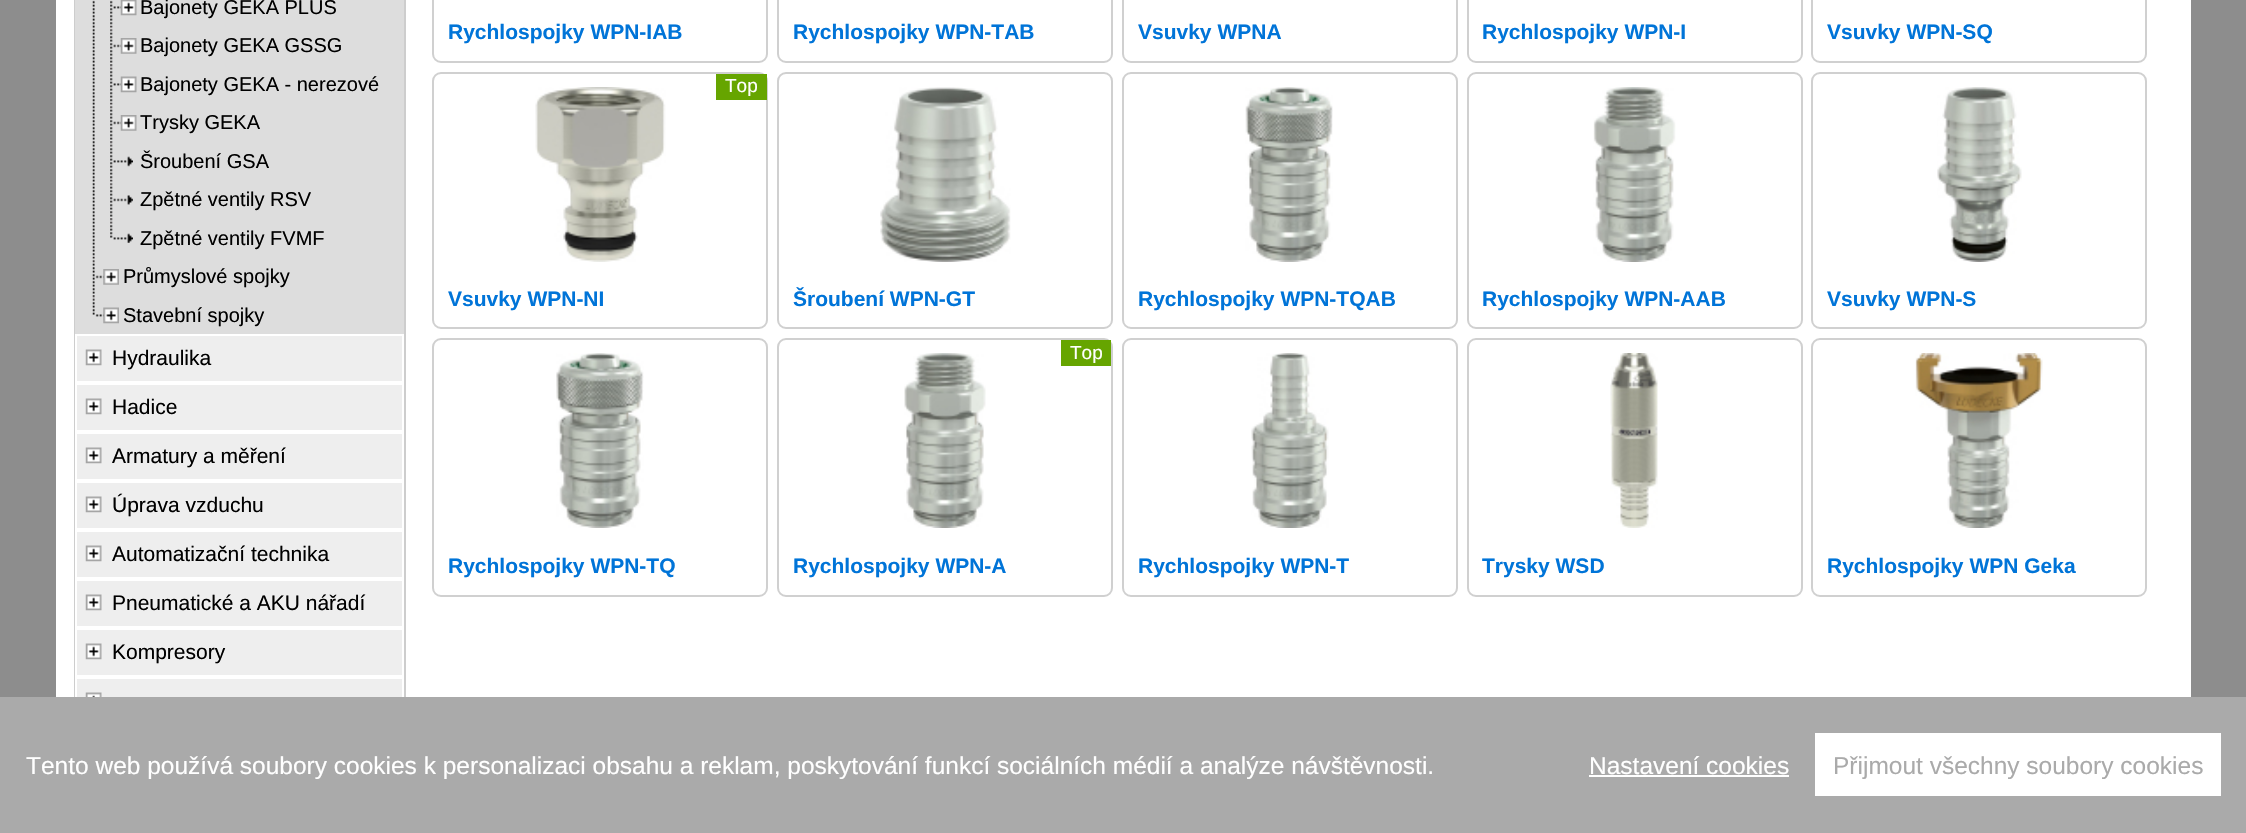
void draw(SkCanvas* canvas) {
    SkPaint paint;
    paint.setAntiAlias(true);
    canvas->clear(0xFF8D8D8D);
    paint.setColor(0xFFFFFFFF);
    canvas->drawRect(SkRect::MakeXYWH(56, 0, 2135, 697), paint);
    paint.setStyle(SkPaint::kStroke_Style);
    paint.setStrokeWidth(2);
    paint.setColor(0xFFCDCDCD);
    canvas->drawRect(SkRect::MakeXYWH(75, -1, 330, 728), paint);
    paint.setStyle(SkPaint::kFill_Style);
    paint.setColor(0xFFDDDDDD);
    canvas->drawRect(SkRect::MakeXYWH(75, 0, 329, 334), paint);
    canvas->drawImageRect(SkImages::DeferredFromEncodedData(SkData::MakeFromFileName("img1.png")), SkRect::MakeXYWH(92, 0, 3, 256), SkSamplingOptions());
    canvas->drawImageRect(SkImages::DeferredFromEncodedData(SkData::MakeFromFileName("img2.png")), SkRect::MakeXYWH(110, 0, 11, 25), SkSamplingOptions());
    canvas->drawImageRect(SkImages::DeferredFromEncodedData(SkData::MakeFromFileName("img3.png")), SkRect::MakeXYWH(120, 0, 17, 16), SkSamplingOptions());
    SkFont font1(fontMgr->matchFamilyStyle("Liberation Sans", SkFontStyle::Normal()), 20);
    font1.setSubpixel(true);
    paint.setColor(0xFF000000);
    canvas->drawString("Bajonety GEKA PLUS", 140, 14, font1, paint);
    canvas->drawImageRect(SkImages::DeferredFromEncodedData(SkData::MakeFromFileName("img4.png")), SkRect::MakeXYWH(110, 25, 11, 38), SkSamplingOptions());
    canvas->drawImageRect(SkImages::DeferredFromEncodedData(SkData::MakeFromFileName("img5.png")), SkRect::MakeXYWH(120, 38, 17, 16), SkSamplingOptions());
    canvas->drawString("Bajonety GEKA GSSG", 140, 52, font1, paint);
    canvas->drawImageRect(SkImages::DeferredFromEncodedData(SkData::MakeFromFileName("img6.png")), SkRect::MakeXYWH(110, 64, 11, 38), SkSamplingOptions());
    canvas->drawImageRect(SkImages::DeferredFromEncodedData(SkData::MakeFromFileName("img7.png")), SkRect::MakeXYWH(120, 76, 17, 17), SkSamplingOptions());
    canvas->drawString("Bajonety GEKA - nerezové", 140, 91, font1, paint);
    canvas->drawImageRect(SkImages::DeferredFromEncodedData(SkData::MakeFromFileName("img4.png")), SkRect::MakeXYWH(110, 102, 11, 38), SkSamplingOptions());
    canvas->drawImageRect(SkImages::DeferredFromEncodedData(SkData::MakeFromFileName("img5.png")), SkRect::MakeXYWH(120, 115, 17, 16), SkSamplingOptions());
    canvas->drawString("Trysky GEKA", 140, 129, font1, paint);
    canvas->drawImageRect(SkImages::DeferredFromEncodedData(SkData::MakeFromFileName("img8.png")), SkRect::MakeXYWH(110, 141, 23, 38), SkSamplingOptions());
    canvas->drawString("Šroubení GSA", 140, 168, font1, paint);
    canvas->drawImageRect(SkImages::DeferredFromEncodedData(SkData::MakeFromFileName("img9.png")), SkRect::MakeXYWH(110, 179, 23, 38), SkSamplingOptions());
    canvas->drawString("Zpětné ventily RSV", 140, 206, font1, paint);
    canvas->drawImageRect(SkImages::DeferredFromEncodedData(SkData::MakeFromFileName("img10.png")), SkRect::MakeXYWH(110, 218, 23, 25), SkSamplingOptions());
    canvas->drawString("Zpětné ventily FVMF", 140, 245, font1, paint);
    canvas->drawImageRect(SkImages::DeferredFromEncodedData(SkData::MakeFromFileName("img11.png")), SkRect::MakeXYWH(92, 256, 12, 38), SkSamplingOptions());
    canvas->drawImageRect(SkImages::DeferredFromEncodedData(SkData::MakeFromFileName("img12.png")), SkRect::MakeXYWH(103, 269, 16, 16), SkSamplingOptions());
    canvas->drawString("Průmyslové spojky", 123, 283, font1, paint);
    canvas->drawImageRect(SkImages::DeferredFromEncodedData(SkData::MakeFromFileName("img13.png")), SkRect::MakeXYWH(92, 295, 12, 22), SkSamplingOptions());
    canvas->drawImageRect(SkImages::DeferredFromEncodedData(SkData::MakeFromFileName("img14.png")), SkRect::MakeXYWH(103, 307, 16, 17), SkSamplingOptions());
    canvas->drawString("Stavební spojky", 123, 322, font1, paint);
    paint.setColor(0xFFEEEEEE);
    canvas->drawRect(SkRect::MakeXYWH(76, 335, 327, 47), paint);
    paint.setStyle(SkPaint::kStroke_Style);
    paint.setColor(0xFFFFFFFF);
    canvas->drawRect(SkRect::MakeXYWH(76, 335, 327, 47), paint);
    canvas->drawImageRect(SkImages::DeferredFromEncodedData(SkData::MakeFromFileName("img15.png")), SkRect::MakeXYWH(85, 349, 17, 17), SkSamplingOptions());
    SkFont font2(fontMgr->matchFamilyStyle("Liberation Sans", SkFontStyle::Normal()), 21);
    font2.setSubpixel(true);
    paint.setStyle(SkPaint::kFill_Style);
    paint.setColor(0xFF000000);
    canvas->drawString("Hydraulika", 112, 365, font2, paint);
    paint.setColor(0xFFEEEEEE);
    canvas->drawRect(SkRect::MakeXYWH(76, 384, 327, 47), paint);
    paint.setStyle(SkPaint::kStroke_Style);
    paint.setColor(0xFFFFFFFF);
    canvas->drawRect(SkRect::MakeXYWH(76, 384, 327, 47), paint);
    canvas->drawImageRect(SkImages::DeferredFromEncodedData(SkData::MakeFromFileName("img15.png")), SkRect::MakeXYWH(85, 398, 17, 17), SkSamplingOptions());
    paint.setStyle(SkPaint::kFill_Style);
    paint.setColor(0xFF000000);
    canvas->drawString("Hadice", 112, 414, font2, paint);
    paint.setColor(0xFFEEEEEE);
    canvas->drawRect(SkRect::MakeXYWH(76, 433, 327, 47), paint);
    paint.setStyle(SkPaint::kStroke_Style);
    paint.setColor(0xFFFFFFFF);
    canvas->drawRect(SkRect::MakeXYWH(76, 433, 327, 47), paint);
    canvas->drawImageRect(SkImages::DeferredFromEncodedData(SkData::MakeFromFileName("img15.png")), SkRect::MakeXYWH(85, 447, 17, 17), SkSamplingOptions());
    paint.setStyle(SkPaint::kFill_Style);
    paint.setColor(0xFF000000);
    canvas->drawString("Armatury a měření", 112, 463, font2, paint);
    paint.setColor(0xFFEEEEEE);
    canvas->drawRect(SkRect::MakeXYWH(76, 482, 327, 47), paint);
    paint.setStyle(SkPaint::kStroke_Style);
    paint.setColor(0xFFFFFFFF);
    canvas->drawRect(SkRect::MakeXYWH(76, 482, 327, 47), paint);
    canvas->drawImageRect(SkImages::DeferredFromEncodedData(SkData::MakeFromFileName("img15.png")), SkRect::MakeXYWH(85, 496, 17, 17), SkSamplingOptions());
    paint.setStyle(SkPaint::kFill_Style);
    paint.setColor(0xFF000000);
    canvas->drawString("Úprava vzduchu", 112, 512, font2, paint);
    paint.setColor(0xFFEEEEEE);
    canvas->drawRect(SkRect::MakeXYWH(76, 531, 327, 47), paint);
    paint.setStyle(SkPaint::kStroke_Style);
    paint.setColor(0xFFFFFFFF);
    canvas->drawRect(SkRect::MakeXYWH(76, 531, 327, 47), paint);
    canvas->drawImageRect(SkImages::DeferredFromEncodedData(SkData::MakeFromFileName("img15.png")), SkRect::MakeXYWH(85, 545, 17, 17), SkSamplingOptions());
    paint.setStyle(SkPaint::kFill_Style);
    paint.setColor(0xFF000000);
    canvas->drawString("Automatizační technika", 112, 561, font2, paint);
    paint.setColor(0xFFEEEEEE);
    canvas->drawRect(SkRect::MakeXYWH(76, 580, 327, 47), paint);
    paint.setStyle(SkPaint::kStroke_Style);
    paint.setColor(0xFFFFFFFF);
    canvas->drawRect(SkRect::MakeXYWH(76, 580, 327, 47), paint);
    canvas->drawImageRect(SkImages::DeferredFromEncodedData(SkData::MakeFromFileName("img15.png")), SkRect::MakeXYWH(85, 594, 17, 17), SkSamplingOptions());
    paint.setStyle(SkPaint::kFill_Style);
    paint.setColor(0xFF000000);
    canvas->drawString("Pneumatické a AKU nářadí", 112, 610, font2, paint);
    paint.setColor(0xFFEEEEEE);
    canvas->drawRect(SkRect::MakeXYWH(76, 629, 327, 47), paint);
    paint.setStyle(SkPaint::kStroke_Style);
    paint.setColor(0xFFFFFFFF);
    canvas->drawRect(SkRect::MakeXYWH(76, 629, 327, 47), paint);
    canvas->drawImageRect(SkImages::DeferredFromEncodedData(SkData::MakeFromFileName("img15.png")), SkRect::MakeXYWH(85, 643, 17, 17), SkSamplingOptions());
    paint.setStyle(SkPaint::kFill_Style);
    paint.setColor(0xFF000000);
    canvas->drawString("Kompresory", 112, 659, font2, paint);
    paint.setColor(0xFFEEEEEE);
    canvas->drawRect(SkRect::MakeXYWH(77, 679, 325, 18), paint);
    paint.setStyle(SkPaint::kStroke_Style);
    paint.setColor(0xFFFFFFFF);
    canvas->drawRect(SkRect::MakeXYWH(76, 678, 327, 47), paint);
    canvas->drawImageRect(SkImages::DeferredFromEncodedData(SkData::MakeFromFileName("img16.png")), SkRect::MakeXYWH(85, 692, 17, 5), SkSamplingOptions());
    paint.setColor(0xFFD0D0D0);
    canvas->drawRoundRect(SkRect::MakeXYWH(433, -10, 334, 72), 8, 8, paint);
    SkFont font3(fontMgr->matchFamilyStyle("Liberation Sans", SkFontStyle::Bold()), 21);
    font3.setSubpixel(true);
    paint.setStyle(SkPaint::kFill_Style);
    paint.setColor(0xFF0074D8);
    canvas->drawString("Rychlospojky WPN-IAB", 448, 39, font3, paint);
    paint.setStyle(SkPaint::kStroke_Style);
    paint.setColor(0xFFD0D0D0);
    canvas->drawRoundRect(SkRect::MakeXYWH(778, -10, 334, 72), 8, 8, paint);
    paint.setStyle(SkPaint::kFill_Style);
    paint.setColor(0xFF0074D8);
    canvas->drawString("Rychlospojky WPN-TAB", 793, 39, font3, paint);
    paint.setStyle(SkPaint::kStroke_Style);
    paint.setColor(0xFFD0D0D0);
    canvas->drawRoundRect(SkRect::MakeXYWH(1123, -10, 334, 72), 8, 8, paint);
    paint.setStyle(SkPaint::kFill_Style);
    paint.setColor(0xFF0074D8);
    canvas->drawString("Vsuvky WPNA", 1138, 39, font3, paint);
    paint.setStyle(SkPaint::kStroke_Style);
    paint.setColor(0xFFD0D0D0);
    canvas->drawRoundRect(SkRect::MakeXYWH(1468, -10, 334, 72), 8, 8, paint);
    paint.setStyle(SkPaint::kFill_Style);
    paint.setColor(0xFF0074D8);
    canvas->drawString("Rychlospojky WPN-I", 1482, 39, font3, paint);
    paint.setStyle(SkPaint::kStroke_Style);
    paint.setColor(0xFFD0D0D0);
    canvas->drawRoundRect(SkRect::MakeXYWH(1812, -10, 334, 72), 8, 8, paint);
    paint.setStyle(SkPaint::kFill_Style);
    paint.setColor(0xFF0074D8);
    canvas->drawString("Vsuvky WPN-SQ", 1827, 39, font3, paint);
    paint.setStyle(SkPaint::kStroke_Style);
    paint.setColor(0xFFD0D0D0);
    canvas->drawRoundRect(SkRect::MakeXYWH(433, 73, 334, 255), 8, 8, paint);
    canvas->drawImageRect(SkImages::DeferredFromEncodedData(SkData::MakeFromFileName("img17.png")), SkRect::MakeXYWH(535, 87, 131, 175), SkSamplingOptions());
    paint.setStyle(SkPaint::kFill_Style);
    paint.setColor(0xFF66A500);
    canvas->drawRect(SkRect::MakeXYWH(716, 74, 51, 26), paint);
    SkFont font4(fontMgr->matchFamilyStyle("Liberation Sans", SkFontStyle::Normal()), 19);
    font4.setSubpixel(true);
    paint.setColor(0xFFFFFFFF);
    canvas->drawString("Top", 725, 92, font4, paint);
    paint.setColor(0xFF0074D8);
    canvas->drawString("Vsuvky WPN-NI", 448, 306, font3, paint);
    paint.setStyle(SkPaint::kStroke_Style);
    paint.setColor(0xFFD0D0D0);
    canvas->drawRoundRect(SkRect::MakeXYWH(778, 73, 334, 255), 8, 8, paint);
    canvas->drawImageRect(SkImages::DeferredFromEncodedData(SkData::MakeFromFileName("img18.png")), SkRect::MakeXYWH(880, 87, 131, 175), SkSamplingOptions());
    paint.setStyle(SkPaint::kFill_Style);
    paint.setColor(0xFF0074D8);
    canvas->drawString("Šroubení WPN-GT", 793, 306, font3, paint);
    paint.setStyle(SkPaint::kStroke_Style);
    paint.setColor(0xFFD0D0D0);
    canvas->drawRoundRect(SkRect::MakeXYWH(1123, 73, 334, 255), 8, 8, paint);
    canvas->drawImageRect(SkImages::DeferredFromEncodedData(SkData::MakeFromFileName("img19.png")), SkRect::MakeXYWH(1245, 87, 88, 175), SkSamplingOptions());
    paint.setStyle(SkPaint::kFill_Style);
    paint.setColor(0xFF0074D8);
    canvas->drawString("Rychlospojky WPN-TQAB", 1138, 306, font3, paint);
    paint.setStyle(SkPaint::kStroke_Style);
    paint.setColor(0xFFD0D0D0);
    canvas->drawRoundRect(SkRect::MakeXYWH(1468, 73, 334, 255), 8, 8, paint);
    canvas->drawImageRect(SkImages::DeferredFromEncodedData(SkData::MakeFromFileName("img20.png")), SkRect::MakeXYWH(1593, 87, 83, 175), SkSamplingOptions());
    paint.setStyle(SkPaint::kFill_Style);
    paint.setColor(0xFF0074D8);
    canvas->drawString("Rychlospojky WPN-AAB", 1482, 306, font3, paint);
    paint.setStyle(SkPaint::kStroke_Style);
    paint.setColor(0xFFD0D0D0);
    canvas->drawRoundRect(SkRect::MakeXYWH(1812, 73, 334, 255), 8, 8, paint);
    canvas->drawImageRect(SkImages::DeferredFromEncodedData(SkData::MakeFromFileName("img21.png")), SkRect::MakeXYWH(1937, 87, 85, 175), SkSamplingOptions());
    paint.setStyle(SkPaint::kFill_Style);
    paint.setColor(0xFF0074D8);
    canvas->drawString("Vsuvky WPN-S", 1827, 306, font3, paint);
    paint.setStyle(SkPaint::kStroke_Style);
    paint.setColor(0xFFD0D0D0);
    canvas->drawRoundRect(SkRect::MakeXYWH(433, 339, 334, 257), 8, 8, paint);
    canvas->drawImageRect(SkImages::DeferredFromEncodedData(SkData::MakeFromFileName("img22.png")), SkRect::MakeXYWH(556, 353, 88, 175), SkSamplingOptions());
    paint.setStyle(SkPaint::kFill_Style);
    paint.setColor(0xFF0074D8);
    canvas->drawString("Rychlospojky WPN-TQ", 448, 573, font3, paint);
    paint.setStyle(SkPaint::kStroke_Style);
    paint.setColor(0xFFD0D0D0);
    canvas->drawRoundRect(SkRect::MakeXYWH(778, 339, 334, 257), 8, 8, paint);
    canvas->drawImageRect(SkImages::DeferredFromEncodedData(SkData::MakeFromFileName("img23.png")), SkRect::MakeXYWH(904, 353, 82, 175), SkSamplingOptions());
    paint.setStyle(SkPaint::kFill_Style);
    paint.setColor(0xFF66A500);
    canvas->drawRect(SkRect::MakeXYWH(1061, 340, 50, 26), paint);
    paint.setColor(0xFFFFFFFF);
    canvas->drawString("Top", 1070, 359, font4, paint);
    paint.setColor(0xFF0074D8);
    canvas->drawString("Rychlospojky WPN-A", 793, 573, font3, paint);
    paint.setStyle(SkPaint::kStroke_Style);
    paint.setColor(0xFFD0D0D0);
    canvas->drawRoundRect(SkRect::MakeXYWH(1123, 339, 334, 257), 8, 8, paint);
    canvas->drawImageRect(SkImages::DeferredFromEncodedData(SkData::MakeFromFileName("img24.png")), SkRect::MakeXYWH(1251, 353, 78, 175), SkSamplingOptions());
    paint.setStyle(SkPaint::kFill_Style);
    paint.setColor(0xFF0074D8);
    canvas->drawString("Rychlospojky WPN-T", 1138, 573, font3, paint);
    paint.setStyle(SkPaint::kStroke_Style);
    paint.setColor(0xFFD0D0D0);
    canvas->drawRoundRect(SkRect::MakeXYWH(1468, 339, 334, 257), 8, 8, paint);
    canvas->drawImageRect(SkImages::DeferredFromEncodedData(SkData::MakeFromFileName("img25.png")), SkRect::MakeXYWH(1610, 353, 48, 175), SkSamplingOptions());
    paint.setStyle(SkPaint::kFill_Style);
    paint.setColor(0xFF0074D8);
    canvas->drawString("Trysky WSD", 1482, 573, font3, paint);
    paint.setStyle(SkPaint::kStroke_Style);
    paint.setColor(0xFFD0D0D0);
    canvas->drawRoundRect(SkRect::MakeXYWH(1812, 339, 334, 257), 8, 8, paint);
    canvas->drawImageRect(SkImages::DeferredFromEncodedData(SkData::MakeFromFileName("img26.png")), SkRect::MakeXYWH(1915, 353, 128, 175), SkSamplingOptions());
    paint.setStyle(SkPaint::kFill_Style);
    paint.setColor(0xFF0074D8);
    canvas->drawString("Rychlospojky WPN Geka", 1827, 573, font3, paint);
    paint.setColor(0xFFAAAAAA);
    canvas->drawRect(SkRect::MakeXYWH(0, 697, 2246, 136), paint);
    SkFont font5(fontMgr->matchFamilyStyle("Liberation Sans", SkFontStyle::Normal()), 24.5f);
    font5.setSubpixel(true);
    paint.setColor(0xFFFFFFFF);
    canvas->drawString("Tento web používá soubory cookies k personalizaci obsahu a reklam, poskytování funkcí sociálních médií a analýze návštěvnosti.", 26, 774, font5, paint);
    canvas->drawString("Nastavení cookies", 1589, 774, font5, paint);
    canvas->drawRect(SkRect::MakeXYWH(1589, 775, 200, 2), paint);
    canvas->drawRect(SkRect::MakeXYWH(1815, 733, 406, 63), paint);
    paint.setColor(0xFFAAAAAA);
    canvas->drawString("Přijmout všechny soubory cookies", 1833, 774, font5, paint);
}
